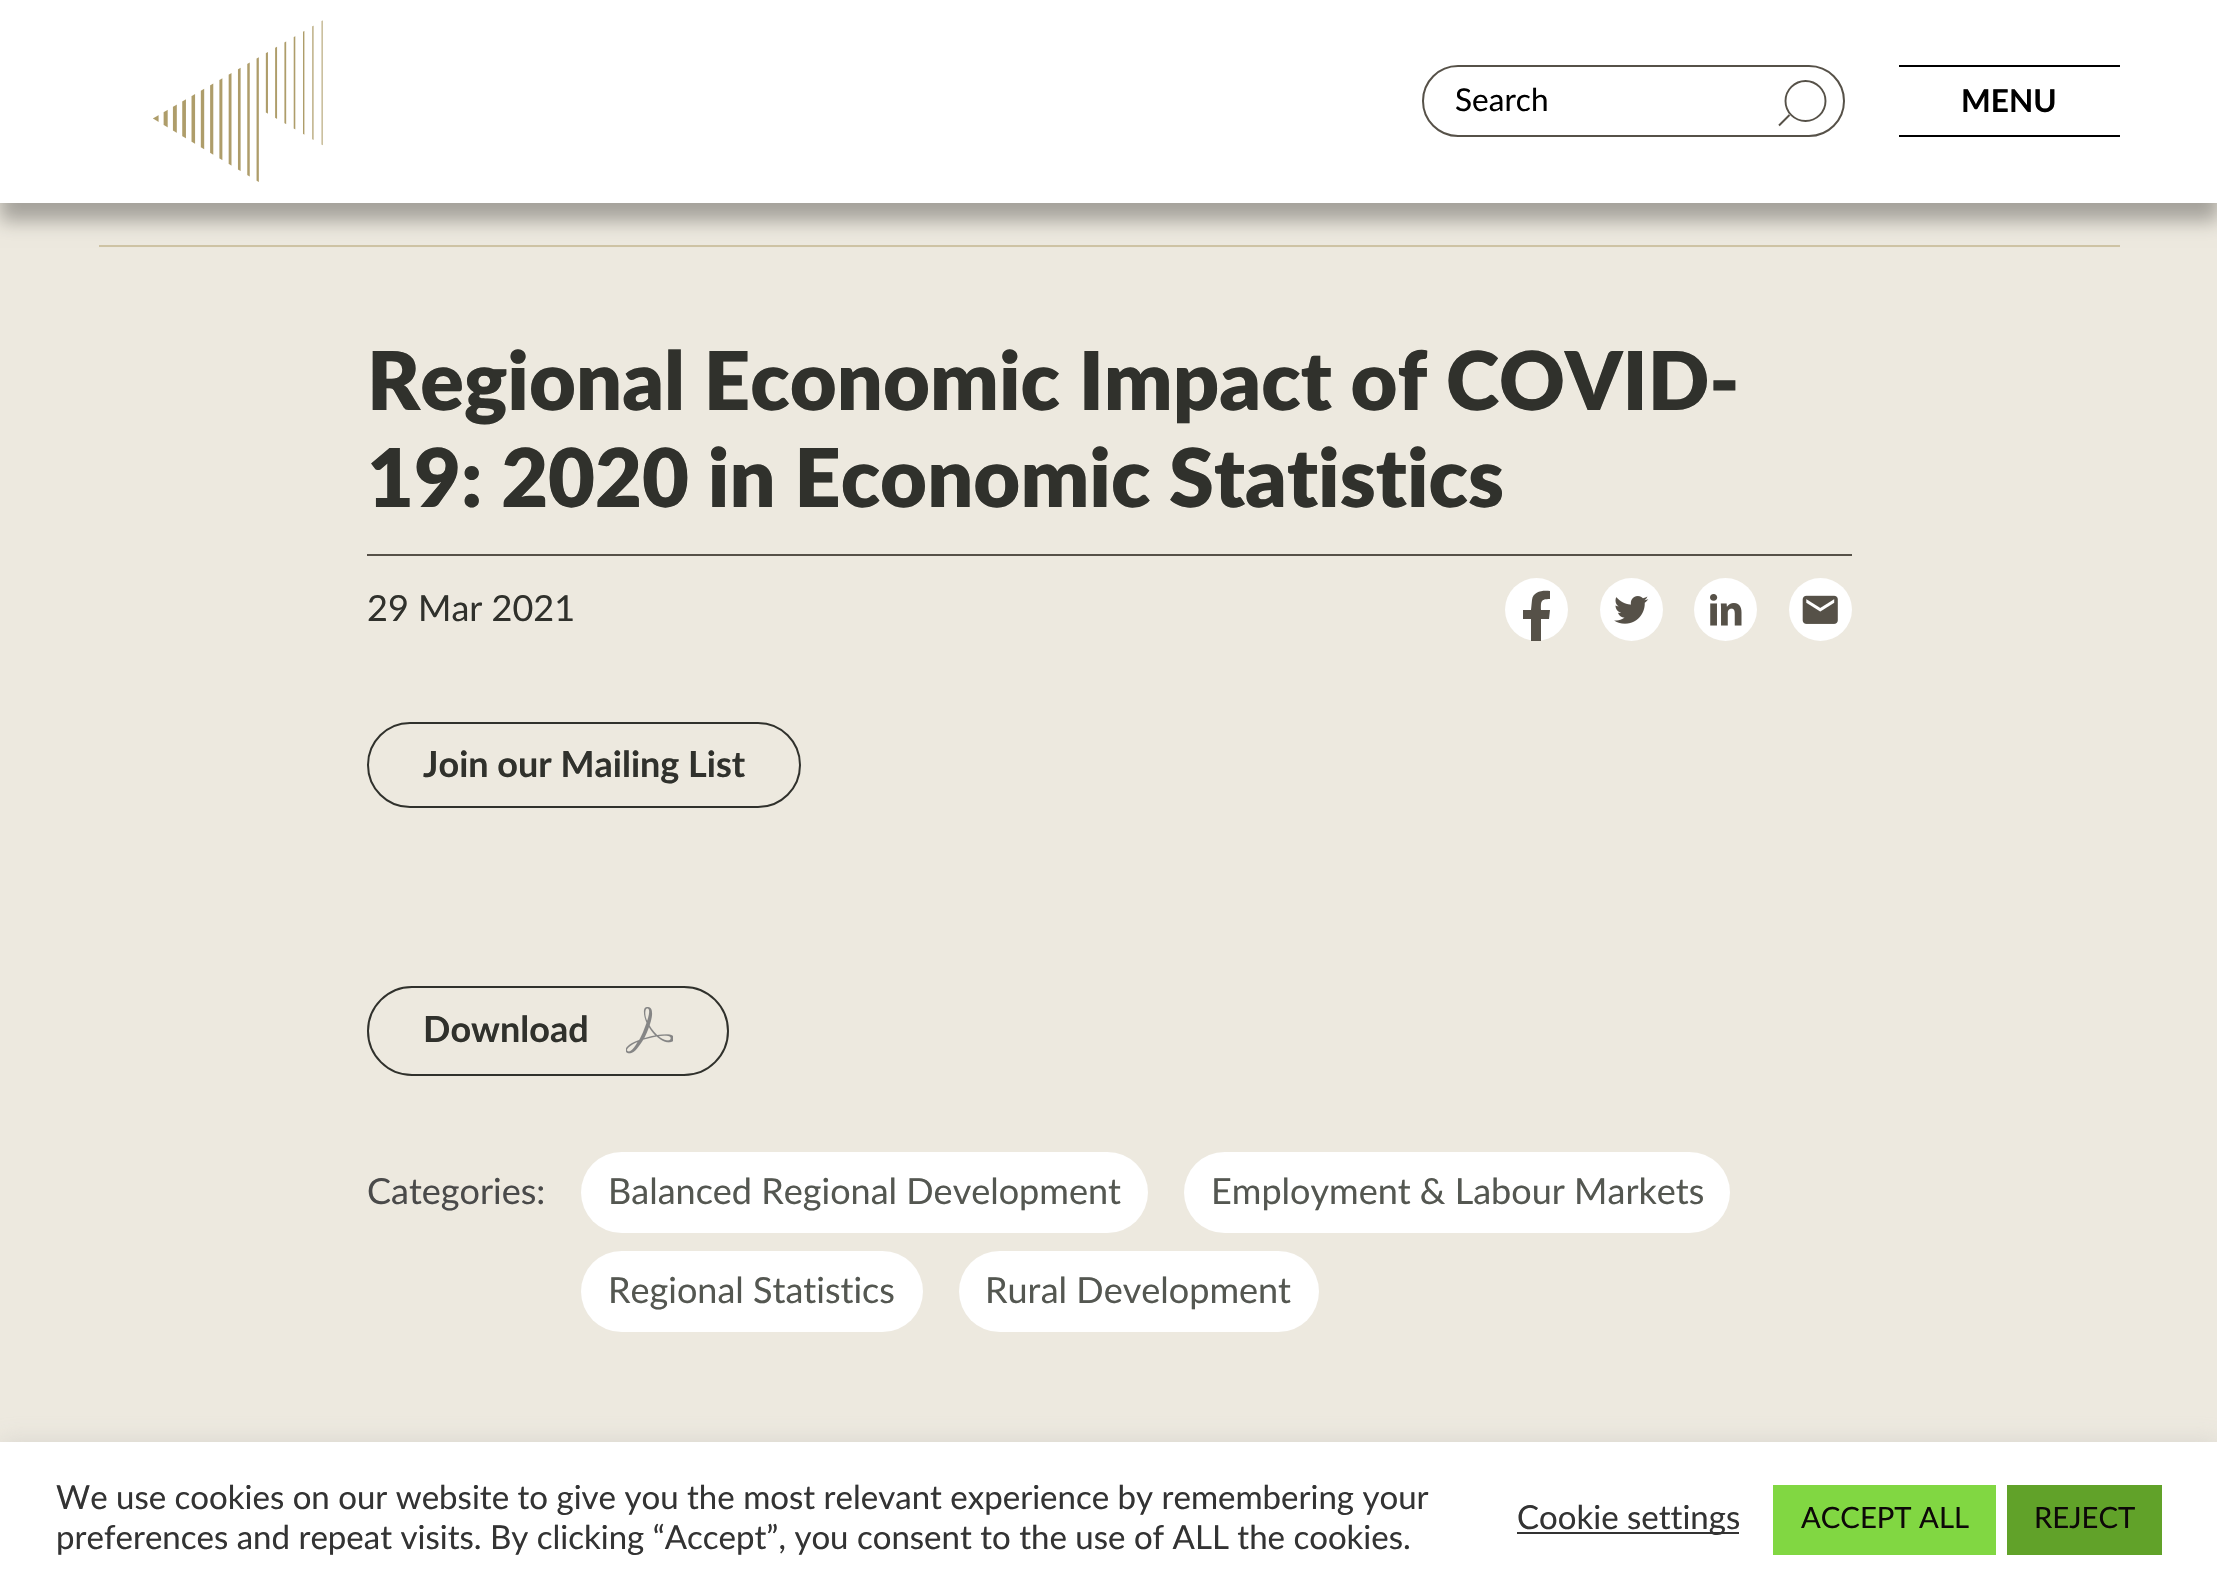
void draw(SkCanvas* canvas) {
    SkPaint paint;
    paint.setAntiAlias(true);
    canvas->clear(0xFFEDE9DF);
    paint.setColor(0xFFCFC4A5);
    canvas->drawRect(SkRect::MakeXYWH(99, 245, 2021, 2), paint);
    paint.setColor(0x4D000000);
    paint.setMaskFilter(SkMaskFilter::MakeBlur(kNormal_SkBlurStyle, 9));
    canvas->drawRect(SkRect::MakeXYWH(0, 18, 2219, 203), paint);
    paint.setMaskFilter(nullptr);
    paint.setColor(0xFFFFFFFF);
    canvas->drawRect(SkRect::MakeXYWH(0, 0, 2217, 203), paint);
    canvas->drawImageRect(SkImages::DeferredFromEncodedData(SkData::MakeFromFileName("img1.png")), SkRect::MakeXYWH(153, 20, 170, 162), SkSamplingOptions());
    paint.setStyle(SkPaint::kStroke_Style);
    paint.setStrokeWidth(2);
    paint.setColor(0xFF565148);
    canvas->drawRoundRect(SkRect::MakeXYWH(1423, 66, 421, 70), 35, 35, paint);
    SkFont font1(fontMgr->matchFamilyStyle("Lato", SkFontStyle::Normal()), 31.5f);
    font1.setSubpixel(true);
    paint.setStyle(SkPaint::kFill_Style);
    paint.setColor(0xFF000000);
    canvas->drawString("Search", 1455, 111, font1, paint);
    paint.setStyle(SkPaint::kStroke_Style);
    paint.setStrokeWidth(1.9f);
    paint.setColor(0xFF565148);
    canvas->drawCircle(1805.5f, 101, 20, paint);
    canvas->drawPath(SkPathBuilder().moveTo(1779, 125.5f).lineTo(1789.5f, 115).detach(), paint);
    paint.setStyle(SkPaint::kFill_Style);
    paint.setColor(0xFF000000);
    canvas->drawRect(SkRect::MakeXYWH(1899, 65, 221, 2), paint);
    canvas->drawRect(SkRect::MakeXYWH(1899, 135, 221, 2), paint);
    SkFont font2(fontMgr->matchFamilyStyle("Lato", SkFontStyle::Bold()), 31.5f);
    font2.setSubpixel(true);
    canvas->drawString("MENU", 1961, 112, font2, paint);
    SkFont font3(fontMgr->matchFamilyStyle("Lato", SkFontStyle(900, SkFontStyle::kNormal_Width, SkFontStyle::kUpright_Slant)), 81);
    font3.setSubpixel(true);
    paint.setColor(0xFF30312C);
    canvas->drawString("Regional Economic Impact of COVID-", 367, 410, font3, paint);
    canvas->drawString("19: 2020 in Economic Statistics", 367, 507, font3, paint);
    paint.setColor(0xFF565148);
    canvas->drawRect(SkRect::MakeXYWH(367, 554, 1485, 2), paint);
    SkFont font4(fontMgr->matchFamilyStyle("Lato", SkFontStyle::Normal()), 36);
    font4.setSubpixel(true);
    paint.setColor(0xFF30312C);
    canvas->drawString("29 Mar 2021", 367, 621, font4, paint);
    paint.setColor(0xFFFFFFFF);
    canvas->drawCircle(1536.5f, 609.5f, 31.5f, paint);
    paint.setColor(0xFF565148);
    canvas->drawPath(SkPathBuilder().moveTo(1541, 641).cubicTo(1538, 641, 1534, 641, 1531, 641).lineTo(1531, 619).lineTo(1523, 619).lineTo(1523, 610).lineTo(1531, 610).lineTo(1532, 600).cubicTo(1533, 591, 1543, 590, 1550, 591).lineTo(1550, 599).cubicTo(1540, 599, 1541, 602, 1541, 610).lineTo(1550, 610).lineTo(1549, 619).lineTo(1541, 619).close().detach(), paint);
    paint.setColor(0xFFFFFFFF);
    canvas->drawCircle(1631.5f, 609.5f, 31.5f, paint);
    canvas->drawImageRect(SkImages::DeferredFromEncodedData(SkData::MakeFromFileName("img2.png")), SkRect::MakeXYWH(1614, 596, 35, 28), SkSamplingOptions());
    canvas->drawCircle(1725.5f, 609.5f, 31.5f, paint);
    canvas->drawImageRect(SkImages::DeferredFromEncodedData(SkData::MakeFromFileName("img3.png")), SkRect::MakeXYWH(1710, 594, 32, 32), SkSamplingOptions());
    canvas->drawCircle(1820.5f, 609.5f, 31.5f, paint);
    canvas->drawImageRect(SkImages::DeferredFromEncodedData(SkData::MakeFromFileName("img4.png")), SkRect::MakeXYWH(1802, 595, 36, 29), SkSamplingOptions());
    paint.setStyle(SkPaint::kStroke_Style);
    paint.setStrokeWidth(2);
    paint.setColor(0xFF30312C);
    canvas->drawRoundRect(SkRect::MakeXYWH(368, 723, 432, 84), 42, 42, paint);
    SkFont font5(fontMgr->matchFamilyStyle("Lato", SkFontStyle::Bold()), 36);
    font5.setSubpixel(true);
    paint.setStyle(SkPaint::kFill_Style);
    canvas->drawString("Join our Mailing List", 423, 777, font5, paint);
    paint.setStyle(SkPaint::kStroke_Style);
    canvas->drawRoundRect(SkRect::MakeXYWH(368, 987, 360, 88), 44, 44, paint);
    paint.setStyle(SkPaint::kFill_Style);
    canvas->drawString("Download", 423, 1042, font5, paint);
    canvas->drawImageRect(SkImages::DeferredFromEncodedData(SkData::MakeFromFileName("img5.png")), SkRect::MakeXYWH(626, 1007, 47, 47), SkSamplingOptions());
    paint.setColor(0xFF4A4A4A);
    canvas->drawString("Categories:", 367, 1204, font4, paint);
    paint.setColor(0xFFFFFFFF);
    canvas->drawRoundRect(SkRect::MakeXYWH(581, 1152, 567, 81), 40.5f, 40.5f, paint);
    paint.setColor(0xFF545751);
    canvas->drawString("Balanced Regional Development", 608, 1204, font4, paint);
    paint.setColor(0xFFFFFFFF);
    canvas->drawRoundRect(SkRect::MakeXYWH(1184, 1152, 546, 81), 40.5f, 40.5f, paint);
    paint.setColor(0xFF545751);
    canvas->drawString("Employment & Labour Markets", 1211, 1204, font4, paint);
    paint.setColor(0xFFFFFFFF);
    canvas->drawRoundRect(SkRect::MakeXYWH(581, 1251, 342, 81), 40.5f, 40.5f, paint);
    paint.setColor(0xFF545751);
    canvas->drawString("Regional Statistics", 608, 1303, font4, paint);
    paint.setColor(0xFFFFFFFF);
    canvas->drawRoundRect(SkRect::MakeXYWH(959, 1251, 360, 81), 40.5f, 40.5f, paint);
    paint.setColor(0xFF545751);
    canvas->drawString("Rural Development", 985, 1303, font4, paint);
    paint.setColor(0x4DACABAB);
    paint.setMaskFilter(SkMaskFilter::MakeBlur(kNormal_SkBlurStyle, 11));
    canvas->drawRect(SkRect::MakeXYWH(0, 1440, 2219, 155), paint);
    paint.setMaskFilter(nullptr);
    paint.setColor(0xFFFFFFFF);
    canvas->drawRect(SkRect::MakeXYWH(0, 1442, 2217, 154), paint);
    SkFont font6(fontMgr->matchFamilyStyle("Lato", SkFontStyle::Normal()), 33);
    font6.setSubpixel(true);
    paint.setColor(0xFF333333);
    canvas->drawString("We use cookies on our website to give you the most relevant experience by remembering your", 56, 1509, font6, paint);
    canvas->drawString("preferences and repeat visits. By clicking “Accept”, you consent to the use of ALL the cookies.", 56, 1549, font6, paint);
    canvas->drawRect(SkRect::MakeXYWH(1517, 1532, 222, 2), paint);
    canvas->drawString("Cookie settings", 1517, 1529, font6, paint);
    paint.setColor(0xFF81D742);
    canvas->drawRect(SkRect::MakeXYWH(1773, 1485, 223, 70), paint);
    SkFont font7(fontMgr->matchFamilyStyle("Lato", SkFontStyle::Normal()), 29.25f);
    font7.setSubpixel(true);
    paint.setColor(0xFF0D0808);
    canvas->drawString("ACCEPT ALL", 1801, 1528, font7, paint);
    paint.setColor(0xFF61A229);
    canvas->drawRect(SkRect::MakeXYWH(2007, 1485, 155, 70), paint);
    paint.setColor(0xFF0D0808);
    canvas->drawString("REJECT", 2034, 1528, font7, paint);
}
